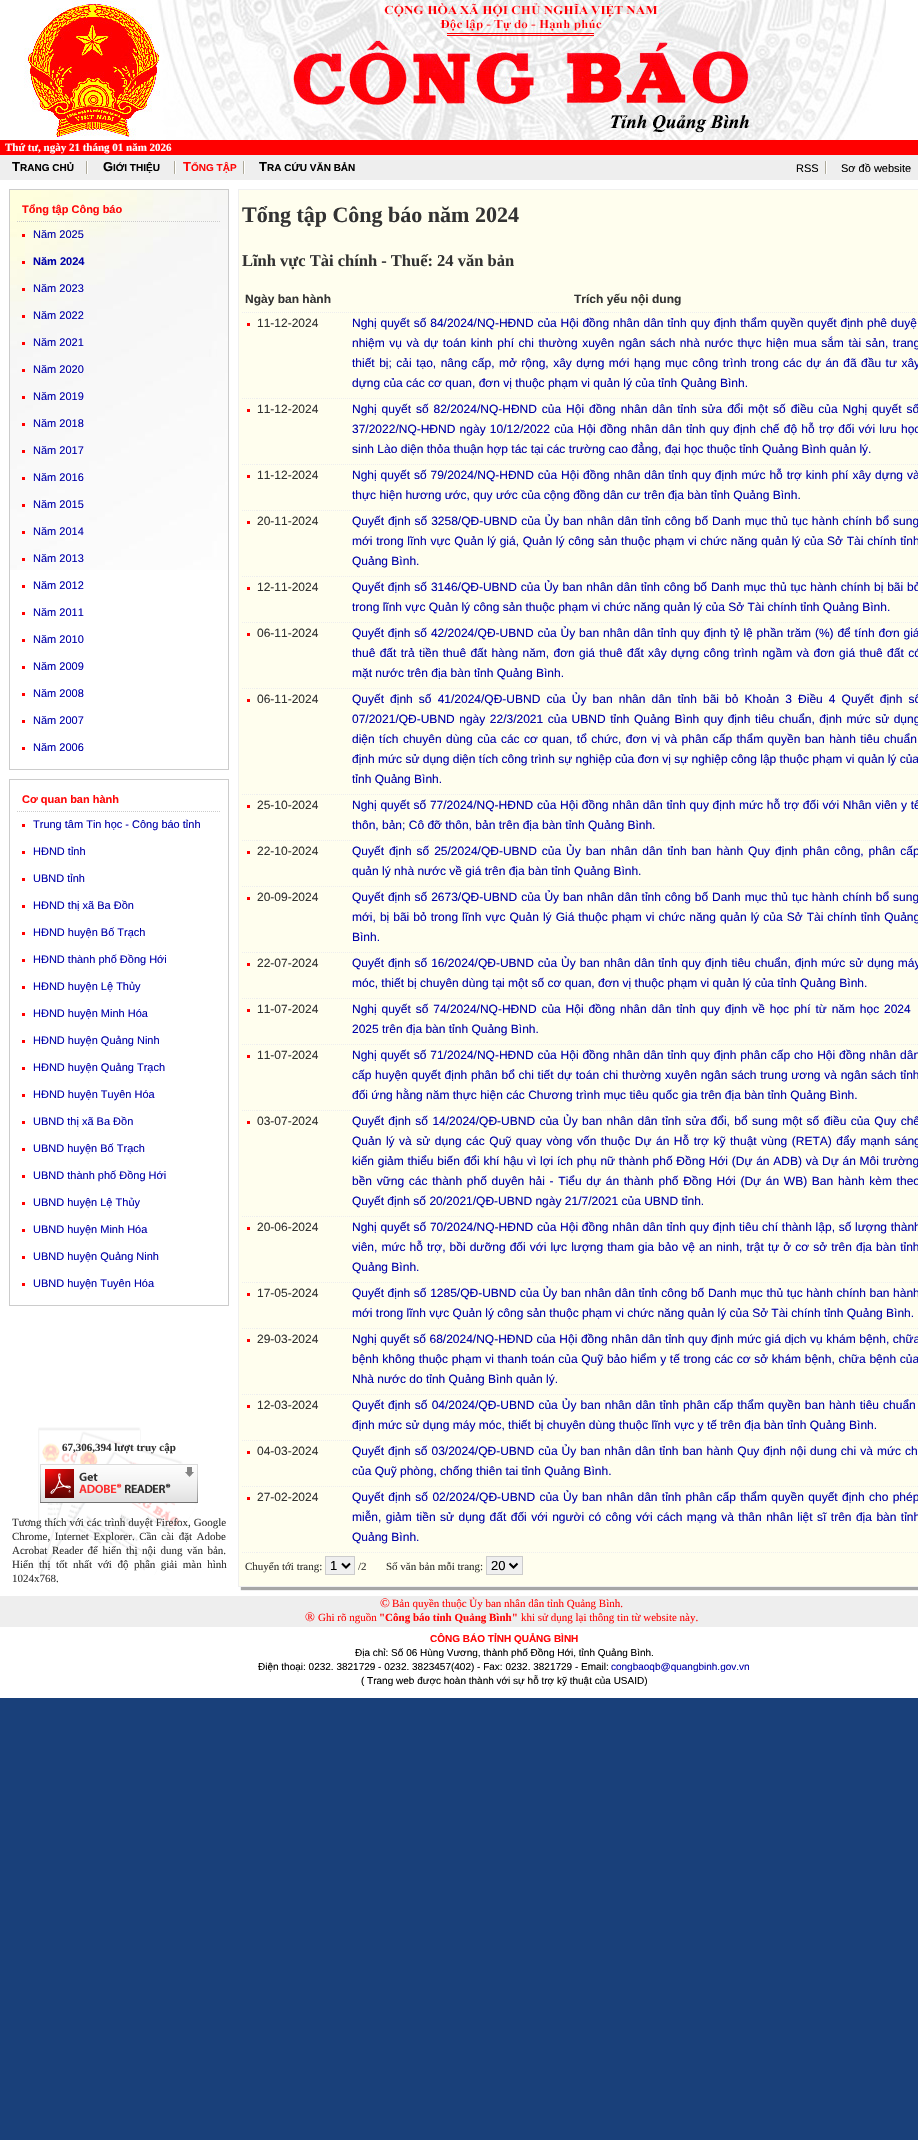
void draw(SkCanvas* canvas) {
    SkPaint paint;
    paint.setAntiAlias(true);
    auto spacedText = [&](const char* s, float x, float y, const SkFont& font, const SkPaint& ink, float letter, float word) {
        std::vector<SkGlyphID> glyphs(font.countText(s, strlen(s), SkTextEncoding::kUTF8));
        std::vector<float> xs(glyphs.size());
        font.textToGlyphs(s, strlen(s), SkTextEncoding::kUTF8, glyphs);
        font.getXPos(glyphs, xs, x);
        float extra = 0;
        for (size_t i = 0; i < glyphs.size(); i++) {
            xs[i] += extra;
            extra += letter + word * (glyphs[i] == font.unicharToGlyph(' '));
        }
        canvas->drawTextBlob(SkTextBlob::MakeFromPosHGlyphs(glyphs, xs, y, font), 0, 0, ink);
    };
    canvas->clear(0xFF19407A);
    paint.setColor(0xFFFFFFFF);
    canvas->drawRect(SkRect::MakeXYWH(0, 0, 918, 1698), paint);
    canvas->drawImageRect(SkImages::DeferredFromEncodedData(SkData::MakeFromFileName("img1.png")), SkRect::MakeXYWH(24, 0, 862, 140), SkSamplingOptions());
    paint.setColor(0xFFFF0000);
    canvas->drawRect(SkRect::MakeXYWH(0, 140, 918, 15), paint);
    SkFont font1(fontMgr->matchFamilyStyle("Liberation Serif", SkFontStyle::Bold()), 11);
    font1.setSubpixel(true);
    paint.setColor(0xFFFFFFFF);
    canvas->drawString("Thứ tư, ngày 21 tháng 01 năm 2026", 5, 151, font1, paint);
    paint.setColor(0xFFEEEEEE);
    canvas->drawRect(SkRect::MakeXYWH(0, 155, 918, 25), paint);
    SkFont font2(fontMgr->matchFamilyStyle("Liberation Sans", SkFontStyle::Bold()), 13);
    font2.setSubpixel(true);
    paint.setColor(0xFF000000);
    canvas->drawString("T", 12, 171, font2, paint);
    SkFont font3(fontMgr->matchFamilyStyle("Liberation Sans", SkFontStyle::Bold()), 10);
    font3.setSubpixel(true);
    canvas->drawString("RANG CHỦ", 20, 171, font3, paint);
    canvas->drawImageRect(SkImages::DeferredFromEncodedData(SkData::MakeFromFileName("img2.png")), SkRect::MakeXYWH(86, 161, 2, 13), SkSamplingOptions());
    canvas->drawString("G", 103, 171, font2, paint);
    canvas->drawString("IỚI THIỆU", 113, 171, font3, paint);
    canvas->drawImageRect(SkImages::DeferredFromEncodedData(SkData::MakeFromFileName("img2.png")), SkRect::MakeXYWH(174, 161, 2, 13), SkSamplingOptions());
    paint.setColor(0xFFFF0808);
    canvas->drawString("T", 183, 171, font2, paint);
    canvas->drawString("ỔNG TẬP", 191, 171, font3, paint);
    canvas->drawImageRect(SkImages::DeferredFromEncodedData(SkData::MakeFromFileName("img2.png")), SkRect::MakeXYWH(243, 161, 2, 13), SkSamplingOptions());
    paint.setColor(0xFF000000);
    canvas->drawString("T", 259, 171, font2, paint);
    canvas->drawString("RA CỨU VĂN BẢN", 267, 171, font3, paint);
    SkFont font4(fontMgr->matchFamilyStyle("Liberation Sans", SkFontStyle::Normal()), 11);
    font4.setSubpixel(true);
    canvas->drawString("RSS", 796, 172, font4, paint);
    canvas->drawImageRect(SkImages::DeferredFromEncodedData(SkData::MakeFromFileName("img2.png")), SkRect::MakeXYWH(825, 161, 2, 13), SkSamplingOptions());
    canvas->drawString("Sơ đồ website", 841, 172, font4, paint);
    canvas->drawImageRect(SkImages::DeferredFromEncodedData(SkData::MakeFromFileName("img3.png")), SkRect::MakeXYWH(10, 190, 218, 380), SkSamplingOptions());
    paint.setStyle(SkPaint::kStroke_Style);
    paint.setStrokeWidth(1);
    paint.setColor(0xFFCCCCCC);
    canvas->drawRect(SkRect::MakeXYWH(9.5f, 189.5f, 219, 580), paint);
    paint.setPathEffect(SkDashPathEffect::Make({{1, 1}}, 0));
    canvas->drawPath(SkPathBuilder().moveTo(17, 221.5f).lineTo(221, 221.5f).detach(), paint);
    paint.setPathEffect(nullptr);
    SkFont font5(fontMgr->matchFamilyStyle("Liberation Sans", SkFontStyle::Bold()), 11);
    font5.setSubpixel(true);
    paint.setStyle(SkPaint::kFill_Style);
    paint.setColor(0xFFFF0808);
    canvas->drawString("Tổng tập Công báo", 22, 213, font5, paint);
    paint.setColor(0xFFFF0000);
    canvas->drawRect(SkRect::MakeXYWH(22, 234, 3, 3), paint);
    paint.setColor(0xFF0000AA);
    canvas->drawString("Năm 2025", 33, 238, font4, paint);
    paint.setColor(0xFFFF0000);
    canvas->drawRect(SkRect::MakeXYWH(22, 261, 3, 3), paint);
    paint.setColor(0xFF0000AA);
    canvas->drawString("Năm 2024", 33, 265, font5, paint);
    paint.setColor(0xFFFF0000);
    canvas->drawRect(SkRect::MakeXYWH(22, 288, 3, 3), paint);
    paint.setColor(0xFF0000AA);
    canvas->drawString("Năm 2023", 33, 292, font4, paint);
    paint.setColor(0xFFFF0000);
    canvas->drawRect(SkRect::MakeXYWH(22, 315, 3, 3), paint);
    paint.setColor(0xFF0000AA);
    canvas->drawString("Năm 2022", 33, 319, font4, paint);
    paint.setColor(0xFFFF0000);
    canvas->drawRect(SkRect::MakeXYWH(22, 342, 3, 3), paint);
    paint.setColor(0xFF0000AA);
    canvas->drawString("Năm 2021", 33, 346, font4, paint);
    paint.setColor(0xFFFF0000);
    canvas->drawRect(SkRect::MakeXYWH(22, 369, 3, 3), paint);
    paint.setColor(0xFF0000AA);
    canvas->drawString("Năm 2020", 33, 373, font4, paint);
    paint.setColor(0xFFFF0000);
    canvas->drawRect(SkRect::MakeXYWH(22, 396, 3, 3), paint);
    paint.setColor(0xFF0000AA);
    canvas->drawString("Năm 2019", 33, 400, font4, paint);
    paint.setColor(0xFFFF0000);
    canvas->drawRect(SkRect::MakeXYWH(22, 423, 3, 3), paint);
    paint.setColor(0xFF0000AA);
    canvas->drawString("Năm 2018", 33, 427, font4, paint);
    paint.setColor(0xFFFF0000);
    canvas->drawRect(SkRect::MakeXYWH(22, 450, 3, 3), paint);
    paint.setColor(0xFF0000AA);
    canvas->drawString("Năm 2017", 33, 454, font4, paint);
    paint.setColor(0xFFFF0000);
    canvas->drawRect(SkRect::MakeXYWH(22, 477, 3, 3), paint);
    paint.setColor(0xFF0000AA);
    canvas->drawString("Năm 2016", 33, 481, font4, paint);
    paint.setColor(0xFFFF0000);
    canvas->drawRect(SkRect::MakeXYWH(22, 504, 3, 3), paint);
    paint.setColor(0xFF0000AA);
    canvas->drawString("Năm 2015", 33, 508, font4, paint);
    paint.setColor(0xFFFF0000);
    canvas->drawRect(SkRect::MakeXYWH(22, 531, 3, 3), paint);
    paint.setColor(0xFF0000AA);
    canvas->drawString("Năm 2014", 33, 535, font4, paint);
    paint.setColor(0xFFFF0000);
    canvas->drawRect(SkRect::MakeXYWH(22, 558, 3, 3), paint);
    paint.setColor(0xFF0000AA);
    canvas->drawString("Năm 2013", 33, 562, font4, paint);
    paint.setColor(0xFFFF0000);
    canvas->drawRect(SkRect::MakeXYWH(22, 585, 3, 3), paint);
    paint.setColor(0xFF0000AA);
    canvas->drawString("Năm 2012", 33, 589, font4, paint);
    paint.setColor(0xFFFF0000);
    canvas->drawRect(SkRect::MakeXYWH(22, 612, 3, 3), paint);
    paint.setColor(0xFF0000AA);
    canvas->drawString("Năm 2011", 33, 616, font4, paint);
    paint.setColor(0xFFFF0000);
    canvas->drawRect(SkRect::MakeXYWH(22, 639, 3, 3), paint);
    paint.setColor(0xFF0000AA);
    canvas->drawString("Năm 2010", 33, 643, font4, paint);
    paint.setColor(0xFFFF0000);
    canvas->drawRect(SkRect::MakeXYWH(22, 666, 3, 3), paint);
    paint.setColor(0xFF0000AA);
    canvas->drawString("Năm 2009", 33, 670, font4, paint);
    paint.setColor(0xFFFF0000);
    canvas->drawRect(SkRect::MakeXYWH(22, 693, 3, 3), paint);
    paint.setColor(0xFF0000AA);
    canvas->drawString("Năm 2008", 33, 697, font4, paint);
    paint.setColor(0xFFFF0000);
    canvas->drawRect(SkRect::MakeXYWH(22, 720, 3, 3), paint);
    paint.setColor(0xFF0000AA);
    canvas->drawString("Năm 2007", 33, 724, font4, paint);
    paint.setColor(0xFFFF0000);
    canvas->drawRect(SkRect::MakeXYWH(22, 747, 3, 3), paint);
    paint.setColor(0xFF0000AA);
    canvas->drawString("Năm 2006", 33, 751, font4, paint);
    paint.setStyle(SkPaint::kStroke_Style);
    paint.setColor(0xFFCCCCCC);
    canvas->drawRect(SkRect::MakeXYWH(9.5f, 779.5f, 219, 526), paint);
    paint.setPathEffect(SkDashPathEffect::Make({{1, 1}}, 0));
    canvas->drawPath(SkPathBuilder().moveTo(17, 811.5f).lineTo(221, 811.5f).detach(), paint);
    paint.setPathEffect(nullptr);
    paint.setStyle(SkPaint::kFill_Style);
    paint.setColor(0xFFFF0808);
    canvas->drawString("Cơ quan ban hành", 22, 803, font5, paint);
    paint.setColor(0xFFFF0000);
    canvas->drawRect(SkRect::MakeXYWH(22, 824, 3, 3), paint);
    paint.setColor(0xFF0000AA);
    canvas->drawString("Trung tâm Tin học - Công báo tỉnh", 33, 828, font4, paint);
    paint.setColor(0xFFFF0000);
    canvas->drawRect(SkRect::MakeXYWH(22, 851, 3, 3), paint);
    paint.setColor(0xFF0000AA);
    canvas->drawString("HĐND tỉnh", 33, 855, font4, paint);
    paint.setColor(0xFFFF0000);
    canvas->drawRect(SkRect::MakeXYWH(22, 878, 3, 3), paint);
    paint.setColor(0xFF0000AA);
    canvas->drawString("UBND tỉnh", 33, 882, font4, paint);
    paint.setColor(0xFFFF0000);
    canvas->drawRect(SkRect::MakeXYWH(22, 905, 3, 3), paint);
    paint.setColor(0xFF0000AA);
    canvas->drawString("HĐND thị xã Ba Đồn", 33, 909, font4, paint);
    paint.setColor(0xFFFF0000);
    canvas->drawRect(SkRect::MakeXYWH(22, 932, 3, 3), paint);
    paint.setColor(0xFF0000AA);
    canvas->drawString("HĐND huyện Bố Trạch", 33, 936, font4, paint);
    paint.setColor(0xFFFF0000);
    canvas->drawRect(SkRect::MakeXYWH(22, 959, 3, 3), paint);
    paint.setColor(0xFF0000AA);
    canvas->drawString("HĐND thành phố Đồng Hới", 33, 963, font4, paint);
    paint.setColor(0xFFFF0000);
    canvas->drawRect(SkRect::MakeXYWH(22, 986, 3, 3), paint);
    paint.setColor(0xFF0000AA);
    canvas->drawString("HĐND huyện Lệ Thủy", 33, 990, font4, paint);
    paint.setColor(0xFFFF0000);
    canvas->drawRect(SkRect::MakeXYWH(22, 1013, 3, 3), paint);
    paint.setColor(0xFF0000AA);
    canvas->drawString("HĐND huyện Minh Hóa", 33, 1017, font4, paint);
    paint.setColor(0xFFFF0000);
    canvas->drawRect(SkRect::MakeXYWH(22, 1040, 3, 3), paint);
    paint.setColor(0xFF0000AA);
    canvas->drawString("HĐND huyện Quảng Ninh", 33, 1044, font4, paint);
    paint.setColor(0xFFFF0000);
    canvas->drawRect(SkRect::MakeXYWH(22, 1067, 3, 3), paint);
    paint.setColor(0xFF0000AA);
    canvas->drawString("HĐND huyện Quảng Trạch", 33, 1071, font4, paint);
    paint.setColor(0xFFFF0000);
    canvas->drawRect(SkRect::MakeXYWH(22, 1094, 3, 3), paint);
    paint.setColor(0xFF0000AA);
    canvas->drawString("HĐND huyện Tuyên Hóa", 33, 1098, font4, paint);
    paint.setColor(0xFFFF0000);
    canvas->drawRect(SkRect::MakeXYWH(22, 1121, 3, 3), paint);
    paint.setColor(0xFF0000AA);
    canvas->drawString("UBND thị xã Ba Đồn", 33, 1125, font4, paint);
    paint.setColor(0xFFFF0000);
    canvas->drawRect(SkRect::MakeXYWH(22, 1148, 3, 3), paint);
    paint.setColor(0xFF0000AA);
    canvas->drawString("UBND huyện Bố Trạch", 33, 1152, font4, paint);
    paint.setColor(0xFFFF0000);
    canvas->drawRect(SkRect::MakeXYWH(22, 1175, 3, 3), paint);
    paint.setColor(0xFF0000AA);
    canvas->drawString("UBND thành phố Đồng Hới", 33, 1179, font4, paint);
    paint.setColor(0xFFFF0000);
    canvas->drawRect(SkRect::MakeXYWH(22, 1202, 3, 3), paint);
    paint.setColor(0xFF0000AA);
    canvas->drawString("UBND huyện Lệ Thủy", 33, 1206, font4, paint);
    paint.setColor(0xFFFF0000);
    canvas->drawRect(SkRect::MakeXYWH(22, 1229, 3, 3), paint);
    paint.setColor(0xFF0000AA);
    canvas->drawString("UBND huyện Minh Hóa", 33, 1233, font4, paint);
    paint.setColor(0xFFFF0000);
    canvas->drawRect(SkRect::MakeXYWH(22, 1256, 3, 3), paint);
    paint.setColor(0xFF0000AA);
    canvas->drawString("UBND huyện Quảng Ninh", 33, 1260, font4, paint);
    paint.setColor(0xFFFF0000);
    canvas->drawRect(SkRect::MakeXYWH(22, 1283, 3, 3), paint);
    paint.setColor(0xFF0000AA);
    canvas->drawString("UBND huyện Tuyên Hóa", 33, 1287, font4, paint);
    paint.setColor(0xFFA6A6A6);
    paint.setMaskFilter(SkMaskFilter::MakeBlur(kNormal_SkBlurStyle, 0.5f));
    canvas->drawRect(SkRect::MakeXYWH(241, 192, 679, 1398), paint);
    paint.setMaskFilter(nullptr);
    paint.setColor(0xFFFFFEEE);
    canvas->drawRect(SkRect::MakeXYWH(238.5f, 189.5f, 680, 1397), paint);
    paint.setStyle(SkPaint::kStroke_Style);
    paint.setColor(0xFFF0F0F0);
    canvas->drawRect(SkRect::MakeXYWH(238.5f, 189.5f, 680, 1397), paint);
    SkFont font6(fontMgr->matchFamilyStyle("Liberation Serif", SkFontStyle::Bold()), 22);
    font6.setSubpixel(true);
    paint.setStyle(SkPaint::kFill_Style);
    paint.setColor(0xFF333333);
    canvas->drawString("Tổng tập Công báo năm 2024", 242, 222, font6, paint);
    SkFont font7(fontMgr->matchFamilyStyle("Liberation Serif", SkFontStyle::Bold()), 16.5f);
    font7.setSubpixel(true);
    canvas->drawString("Lĩnh vực Tài chính - Thuế: 24 văn bản", 242, 266, font7, paint);
    paint.setStyle(SkPaint::kStroke_Style);
    paint.setColor(0xFFEEEEEE);
    paint.setPathEffect(SkDashPathEffect::Make({{1, 1}}, 0));
    canvas->drawPath(SkPathBuilder().moveTo(242, 312.5f).lineTo(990, 312.5f).detach(), paint);
    paint.setPathEffect(nullptr);
    SkFont font8(fontMgr->matchFamilyStyle("Liberation Sans", SkFontStyle::Bold()), 12);
    font8.setSubpixel(true);
    paint.setStyle(SkPaint::kFill_Style);
    paint.setColor(0xFF333333);
    canvas->drawString("Ngày ban hành", 245, 303, font8, paint);
    canvas->drawString("Trích yếu nội dung", 574, 303, font8, paint);
    paint.setStyle(SkPaint::kStroke_Style);
    paint.setColor(0xFFEEEEEE);
    paint.setPathEffect(SkDashPathEffect::Make({{1, 1}}, 0));
    canvas->drawPath(SkPathBuilder().moveTo(242, 398.5f).lineTo(257, 398.5f).detach(), paint);
    paint.setPathEffect(nullptr);
    paint.setStyle(SkPaint::kFill_Style);
    paint.setColor(0xFFFF0000);
    canvas->drawRect(SkRect::MakeXYWH(247, 323, 3, 3), paint);
    paint.setStyle(SkPaint::kStroke_Style);
    paint.setColor(0xFFEEEEEE);
    paint.setPathEffect(SkDashPathEffect::Make({{1, 1}}, 0));
    canvas->drawPath(SkPathBuilder().moveTo(257, 398.5f).lineTo(347, 398.5f).detach(), paint);
    paint.setPathEffect(nullptr);
    SkFont font9(fontMgr->matchFamilyStyle("Liberation Sans", SkFontStyle::Normal()), 12);
    font9.setSubpixel(true);
    paint.setStyle(SkPaint::kFill_Style);
    paint.setColor(0xFF333333);
    canvas->drawString("11-12-2024", 257, 327, font9, paint);
    paint.setStyle(SkPaint::kStroke_Style);
    paint.setColor(0xFFEEEEEE);
    paint.setPathEffect(SkDashPathEffect::Make({{1, 1}}, 0));
    canvas->drawPath(SkPathBuilder().moveTo(347, 398.5f).lineTo(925, 398.5f).detach(), paint);
    paint.setPathEffect(nullptr);
    paint.setStyle(SkPaint::kFill_Style);
    paint.setColor(0xFF0000AA);
    spacedText("Nghị quyết số 84/2024/NQ-HĐND của Hội đồng nhân dân tỉnh quy định thẩm quyền quyết định phê duyệ", 352, 327, font9, paint, 0, 0.5f);
    spacedText("nhiệm vụ và dự toán kinh phí chi thường xuyên ngân sách nhà nước thực hiện mua sắm tài sản, trang", 352, 347, font9, paint, 0, 1.2f);
    spacedText("thiết bị; cải tạo, nâng cấp, mở rộng, xây dựng mới hạng mục công trình trong các dự án đã đầu tư xây", 352, 367, font9, paint, 0, 1.15f);
    canvas->drawString("dựng của các cơ quan, đơn vị thuộc phạm vi quản lý của tỉnh Quảng Bình.", 352, 387, font9, paint);
    paint.setStyle(SkPaint::kStroke_Style);
    paint.setColor(0xFFEEEEEE);
    paint.setPathEffect(SkDashPathEffect::Make({{1, 1}}, 0));
    canvas->drawPath(SkPathBuilder().moveTo(242, 464.5f).lineTo(257, 464.5f).detach(), paint);
    paint.setPathEffect(nullptr);
    paint.setStyle(SkPaint::kFill_Style);
    paint.setColor(0xFFFF0000);
    canvas->drawRect(SkRect::MakeXYWH(247, 409, 3, 3), paint);
    paint.setStyle(SkPaint::kStroke_Style);
    paint.setColor(0xFFEEEEEE);
    paint.setPathEffect(SkDashPathEffect::Make({{1, 1}}, 0));
    canvas->drawPath(SkPathBuilder().moveTo(257, 464.5f).lineTo(347, 464.5f).detach(), paint);
    paint.setPathEffect(nullptr);
    paint.setStyle(SkPaint::kFill_Style);
    paint.setColor(0xFF333333);
    canvas->drawString("11-12-2024", 257, 413, font9, paint);
    paint.setStyle(SkPaint::kStroke_Style);
    paint.setColor(0xFFEEEEEE);
    paint.setPathEffect(SkDashPathEffect::Make({{1, 1}}, 0));
    canvas->drawPath(SkPathBuilder().moveTo(347, 464.5f).lineTo(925, 464.5f).detach(), paint);
    paint.setPathEffect(nullptr);
    paint.setStyle(SkPaint::kFill_Style);
    paint.setColor(0xFF0000AA);
    spacedText("Nghị quyết số 82/2024/NQ-HĐND của Hội đồng nhân dân tỉnh sửa đổi một số điều của Nghị quyết số", 352, 413, font9, paint, 0, 1.6f);
    spacedText("37/2022/NQ-HĐND ngày 10/12/2022 của Hội đồng nhân dân tỉnh quy định chế độ hỗ trợ đối với lưu học", 352, 433, font9, paint, 0, 0.9f);
    canvas->drawString("sinh Lào diện thỏa thuận hợp tác tại các trường cao đẳng, đại học thuộc tỉnh Quảng Bình quản lý.", 352, 453, font9, paint);
    paint.setStyle(SkPaint::kStroke_Style);
    paint.setColor(0xFFEEEEEE);
    paint.setPathEffect(SkDashPathEffect::Make({{1, 1}}, 0));
    canvas->drawPath(SkPathBuilder().moveTo(242, 510.5f).lineTo(257, 510.5f).detach(), paint);
    paint.setPathEffect(nullptr);
    paint.setStyle(SkPaint::kFill_Style);
    paint.setColor(0xFFFF0000);
    canvas->drawRect(SkRect::MakeXYWH(247, 475, 3, 3), paint);
    paint.setStyle(SkPaint::kStroke_Style);
    paint.setColor(0xFFEEEEEE);
    paint.setPathEffect(SkDashPathEffect::Make({{1, 1}}, 0));
    canvas->drawPath(SkPathBuilder().moveTo(257, 510.5f).lineTo(347, 510.5f).detach(), paint);
    paint.setPathEffect(nullptr);
    paint.setStyle(SkPaint::kFill_Style);
    paint.setColor(0xFF333333);
    canvas->drawString("11-12-2024", 257, 479, font9, paint);
    paint.setStyle(SkPaint::kStroke_Style);
    paint.setColor(0xFFEEEEEE);
    paint.setPathEffect(SkDashPathEffect::Make({{1, 1}}, 0));
    canvas->drawPath(SkPathBuilder().moveTo(347, 510.5f).lineTo(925, 510.5f).detach(), paint);
    paint.setPathEffect(nullptr);
    paint.setStyle(SkPaint::kFill_Style);
    paint.setColor(0xFF0000AA);
    spacedText("Nghị quyết số 79/2024/NQ-HĐND của Hội đồng nhân dân tỉnh quy định mức hỗ trợ kinh phí xây dựng và", 352, 479, font9, paint, 0, 0.6f);
    canvas->drawString("thực hiện hương ước, quy ước của cộng đồng dân cư trên địa bàn tỉnh Quảng Bình.", 352, 499, font9, paint);
    paint.setStyle(SkPaint::kStroke_Style);
    paint.setColor(0xFFEEEEEE);
    paint.setPathEffect(SkDashPathEffect::Make({{1, 1}}, 0));
    canvas->drawPath(SkPathBuilder().moveTo(242, 576.5f).lineTo(257, 576.5f).detach(), paint);
    paint.setPathEffect(nullptr);
    paint.setStyle(SkPaint::kFill_Style);
    paint.setColor(0xFFFF0000);
    canvas->drawRect(SkRect::MakeXYWH(247, 521, 3, 3), paint);
    paint.setStyle(SkPaint::kStroke_Style);
    paint.setColor(0xFFEEEEEE);
    paint.setPathEffect(SkDashPathEffect::Make({{1, 1}}, 0));
    canvas->drawPath(SkPathBuilder().moveTo(257, 576.5f).lineTo(347, 576.5f).detach(), paint);
    paint.setPathEffect(nullptr);
    paint.setStyle(SkPaint::kFill_Style);
    paint.setColor(0xFF333333);
    canvas->drawString("20-11-2024", 257, 525, font9, paint);
    paint.setStyle(SkPaint::kStroke_Style);
    paint.setColor(0xFFEEEEEE);
    paint.setPathEffect(SkDashPathEffect::Make({{1, 1}}, 0));
    canvas->drawPath(SkPathBuilder().moveTo(347, 576.5f).lineTo(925, 576.5f).detach(), paint);
    paint.setPathEffect(nullptr);
    paint.setStyle(SkPaint::kFill_Style);
    paint.setColor(0xFF0000AA);
    spacedText("Quyết định số 3258/QĐ-UBND của Ủy ban nhân dân tỉnh công bố Danh mục thủ tục hành chính bổ sung", 352, 525, font9, paint, 0, 0.6f);
    spacedText("mới trong lĩnh vực Quản lý giá, Quản lý công sản thuộc phạm vi chức năng quản lý của Sở Tài chính tỉnh", 352, 545, font9, paint, 0, 0.4f);
    canvas->drawString("Quảng Bình.", 352, 565, font9, paint);
    paint.setStyle(SkPaint::kStroke_Style);
    paint.setColor(0xFFEEEEEE);
    paint.setPathEffect(SkDashPathEffect::Make({{1, 1}}, 0));
    canvas->drawPath(SkPathBuilder().moveTo(242, 622.5f).lineTo(257, 622.5f).detach(), paint);
    paint.setPathEffect(nullptr);
    paint.setStyle(SkPaint::kFill_Style);
    paint.setColor(0xFFFF0000);
    canvas->drawRect(SkRect::MakeXYWH(247, 587, 3, 3), paint);
    paint.setStyle(SkPaint::kStroke_Style);
    paint.setColor(0xFFEEEEEE);
    paint.setPathEffect(SkDashPathEffect::Make({{1, 1}}, 0));
    canvas->drawPath(SkPathBuilder().moveTo(257, 622.5f).lineTo(347, 622.5f).detach(), paint);
    paint.setPathEffect(nullptr);
    paint.setStyle(SkPaint::kFill_Style);
    paint.setColor(0xFF333333);
    canvas->drawString("12-11-2024", 257, 591, font9, paint);
    paint.setStyle(SkPaint::kStroke_Style);
    paint.setColor(0xFFEEEEEE);
    paint.setPathEffect(SkDashPathEffect::Make({{1, 1}}, 0));
    canvas->drawPath(SkPathBuilder().moveTo(347, 622.5f).lineTo(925, 622.5f).detach(), paint);
    paint.setPathEffect(nullptr);
    paint.setStyle(SkPaint::kFill_Style);
    paint.setColor(0xFF0000AA);
    spacedText("Quyết định số 3146/QĐ-UBND của Ủy ban nhân dân tỉnh công bố Danh mục thủ tục hành chính bị bãi bỏ", 352, 591, font9, paint, 0, 0.5f);
    canvas->drawString("trong lĩnh vực Quản lý công sản thuộc phạm vi chức năng quản lý của Sở Tài chính tỉnh Quảng Bình.", 352, 611, font9, paint);
    paint.setStyle(SkPaint::kStroke_Style);
    paint.setColor(0xFFEEEEEE);
    paint.setPathEffect(SkDashPathEffect::Make({{1, 1}}, 0));
    canvas->drawPath(SkPathBuilder().moveTo(242, 688.5f).lineTo(257, 688.5f).detach(), paint);
    paint.setPathEffect(nullptr);
    paint.setStyle(SkPaint::kFill_Style);
    paint.setColor(0xFFFF0000);
    canvas->drawRect(SkRect::MakeXYWH(247, 633, 3, 3), paint);
    paint.setStyle(SkPaint::kStroke_Style);
    paint.setColor(0xFFEEEEEE);
    paint.setPathEffect(SkDashPathEffect::Make({{1, 1}}, 0));
    canvas->drawPath(SkPathBuilder().moveTo(257, 688.5f).lineTo(347, 688.5f).detach(), paint);
    paint.setPathEffect(nullptr);
    paint.setStyle(SkPaint::kFill_Style);
    paint.setColor(0xFF333333);
    canvas->drawString("06-11-2024", 257, 637, font9, paint);
    paint.setStyle(SkPaint::kStroke_Style);
    paint.setColor(0xFFEEEEEE);
    paint.setPathEffect(SkDashPathEffect::Make({{1, 1}}, 0));
    canvas->drawPath(SkPathBuilder().moveTo(347, 688.5f).lineTo(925, 688.5f).detach(), paint);
    paint.setPathEffect(nullptr);
    paint.setStyle(SkPaint::kFill_Style);
    paint.setColor(0xFF0000AA);
    spacedText("Quyết định số 42/2024/QĐ-UBND của Ủy ban nhân dân tỉnh quy định tỷ lệ phần trăm (%) để tính đơn giá", 352, 637, font9, paint, 0, 0.5f);
    spacedText("thuê đất trả tiền thuê đất hàng năm, đơn giá thuê đất xây dựng công trình ngầm và đơn giá thuê đất có", 352, 657, font9, paint, 0, 1);
    canvas->drawString("mặt nước trên địa bàn tỉnh Quảng Bình.", 352, 677, font9, paint);
    paint.setStyle(SkPaint::kStroke_Style);
    paint.setColor(0xFFEEEEEE);
    paint.setPathEffect(SkDashPathEffect::Make({{1, 1}}, 0));
    canvas->drawPath(SkPathBuilder().moveTo(242, 794.5f).lineTo(257, 794.5f).detach(), paint);
    paint.setPathEffect(nullptr);
    paint.setStyle(SkPaint::kFill_Style);
    paint.setColor(0xFFFF0000);
    canvas->drawRect(SkRect::MakeXYWH(247, 699, 3, 3), paint);
    paint.setStyle(SkPaint::kStroke_Style);
    paint.setColor(0xFFEEEEEE);
    paint.setPathEffect(SkDashPathEffect::Make({{1, 1}}, 0));
    canvas->drawPath(SkPathBuilder().moveTo(257, 794.5f).lineTo(347, 794.5f).detach(), paint);
    paint.setPathEffect(nullptr);
    paint.setStyle(SkPaint::kFill_Style);
    paint.setColor(0xFF333333);
    canvas->drawString("06-11-2024", 257, 703, font9, paint);
    paint.setStyle(SkPaint::kStroke_Style);
    paint.setColor(0xFFEEEEEE);
    paint.setPathEffect(SkDashPathEffect::Make({{1, 1}}, 0));
    canvas->drawPath(SkPathBuilder().moveTo(347, 794.5f).lineTo(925, 794.5f).detach(), paint);
    paint.setPathEffect(nullptr);
    paint.setStyle(SkPaint::kFill_Style);
    paint.setColor(0xFF0000AA);
    spacedText("Quyết định số 41/2024/QĐ-UBND của Ủy ban nhân dân tỉnh bãi bỏ Khoản 3 Điều 4 Quyết định số", 352, 703, font9, paint, 0, 2.75f);
    spacedText("07/2021/QĐ-UBND ngày 22/3/2021 của UBND tỉnh Quảng Bình quy định tiêu chuẩn, định mức sử dụng", 352, 723, font9, paint, 0, 1.2f);
    spacedText("diện tích chuyên dùng của các cơ quan, tổ chức, đơn vị và phân cấp thẩm quyền ban hành tiêu chuẩn", 352, 743, font9, paint, 0, 1.1f);
    canvas->drawString("định mức sử dụng diện tích công trình sự nghiệp của đơn vị sự nghiệp công lập thuộc phạm vi quản lý của", 352, 763, font9, paint);
    canvas->drawString("tỉnh Quảng Bình.", 352, 783, font9, paint);
    paint.setStyle(SkPaint::kStroke_Style);
    paint.setColor(0xFFEEEEEE);
    paint.setPathEffect(SkDashPathEffect::Make({{1, 1}}, 0));
    canvas->drawPath(SkPathBuilder().moveTo(242, 840.5f).lineTo(257, 840.5f).detach(), paint);
    paint.setPathEffect(nullptr);
    paint.setStyle(SkPaint::kFill_Style);
    paint.setColor(0xFFFF0000);
    canvas->drawRect(SkRect::MakeXYWH(247, 805, 3, 3), paint);
    paint.setStyle(SkPaint::kStroke_Style);
    paint.setColor(0xFFEEEEEE);
    paint.setPathEffect(SkDashPathEffect::Make({{1, 1}}, 0));
    canvas->drawPath(SkPathBuilder().moveTo(257, 840.5f).lineTo(347, 840.5f).detach(), paint);
    paint.setPathEffect(nullptr);
    paint.setStyle(SkPaint::kFill_Style);
    paint.setColor(0xFF333333);
    canvas->drawString("25-10-2024", 257, 809, font9, paint);
    paint.setStyle(SkPaint::kStroke_Style);
    paint.setColor(0xFFEEEEEE);
    paint.setPathEffect(SkDashPathEffect::Make({{1, 1}}, 0));
    canvas->drawPath(SkPathBuilder().moveTo(347, 840.5f).lineTo(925, 840.5f).detach(), paint);
    paint.setPathEffect(nullptr);
    paint.setStyle(SkPaint::kFill_Style);
    paint.setColor(0xFF0000AA);
    spacedText("Nghị quyết số 77/2024/NQ-HĐND của Hội đồng nhân dân tỉnh quy định mức hỗ trợ đối với Nhân viên y tế", 352, 809, font9, paint, 0, 0.4f);
    canvas->drawString("thôn, bản; Cô đỡ thôn, bản trên địa bàn tỉnh Quảng Bình.", 352, 829, font9, paint);
    paint.setStyle(SkPaint::kStroke_Style);
    paint.setColor(0xFFEEEEEE);
    paint.setPathEffect(SkDashPathEffect::Make({{1, 1}}, 0));
    canvas->drawPath(SkPathBuilder().moveTo(242, 886.5f).lineTo(257, 886.5f).detach(), paint);
    paint.setPathEffect(nullptr);
    paint.setStyle(SkPaint::kFill_Style);
    paint.setColor(0xFFFF0000);
    canvas->drawRect(SkRect::MakeXYWH(247, 851, 3, 3), paint);
    paint.setStyle(SkPaint::kStroke_Style);
    paint.setColor(0xFFEEEEEE);
    paint.setPathEffect(SkDashPathEffect::Make({{1, 1}}, 0));
    canvas->drawPath(SkPathBuilder().moveTo(257, 886.5f).lineTo(347, 886.5f).detach(), paint);
    paint.setPathEffect(nullptr);
    paint.setStyle(SkPaint::kFill_Style);
    paint.setColor(0xFF333333);
    canvas->drawString("22-10-2024", 257, 855, font9, paint);
    paint.setStyle(SkPaint::kStroke_Style);
    paint.setColor(0xFFEEEEEE);
    paint.setPathEffect(SkDashPathEffect::Make({{1, 1}}, 0));
    canvas->drawPath(SkPathBuilder().moveTo(347, 886.5f).lineTo(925, 886.5f).detach(), paint);
    paint.setPathEffect(nullptr);
    paint.setStyle(SkPaint::kFill_Style);
    paint.setColor(0xFF0000AA);
    spacedText("Quyết định số 25/2024/QĐ-UBND của Ủy ban nhân dân tỉnh ban hành Quy định phân công, phân cấp", 352, 855, font9, paint, 0, 1.6f);
    canvas->drawString("quản lý nhà nước về giá trên địa bàn tỉnh Quảng Bình.", 352, 875, font9, paint);
    paint.setStyle(SkPaint::kStroke_Style);
    paint.setColor(0xFFEEEEEE);
    paint.setPathEffect(SkDashPathEffect::Make({{1, 1}}, 0));
    canvas->drawPath(SkPathBuilder().moveTo(242, 952.5f).lineTo(257, 952.5f).detach(), paint);
    paint.setPathEffect(nullptr);
    paint.setStyle(SkPaint::kFill_Style);
    paint.setColor(0xFFFF0000);
    canvas->drawRect(SkRect::MakeXYWH(247, 897, 3, 3), paint);
    paint.setStyle(SkPaint::kStroke_Style);
    paint.setColor(0xFFEEEEEE);
    paint.setPathEffect(SkDashPathEffect::Make({{1, 1}}, 0));
    canvas->drawPath(SkPathBuilder().moveTo(257, 952.5f).lineTo(347, 952.5f).detach(), paint);
    paint.setPathEffect(nullptr);
    paint.setStyle(SkPaint::kFill_Style);
    paint.setColor(0xFF333333);
    canvas->drawString("20-09-2024", 257, 901, font9, paint);
    paint.setStyle(SkPaint::kStroke_Style);
    paint.setColor(0xFFEEEEEE);
    paint.setPathEffect(SkDashPathEffect::Make({{1, 1}}, 0));
    canvas->drawPath(SkPathBuilder().moveTo(347, 952.5f).lineTo(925, 952.5f).detach(), paint);
    paint.setPathEffect(nullptr);
    paint.setStyle(SkPaint::kFill_Style);
    paint.setColor(0xFF0000AA);
    spacedText("Quyết định số 2673/QĐ-UBND của Ủy ban nhân dân tỉnh công bố Danh mục thủ tục hành chính bổ sung", 352, 901, font9, paint, 0, 0.6f);
    spacedText("mới, bị bãi bỏ trong lĩnh vực Quản lý Giá thuộc phạm vi chức năng quản lý của Sở Tài chính tỉnh Quảng", 352, 921, font9, paint, 0, 0.7f);
    canvas->drawString("Bình.", 352, 941, font9, paint);
    paint.setStyle(SkPaint::kStroke_Style);
    paint.setColor(0xFFEEEEEE);
    paint.setPathEffect(SkDashPathEffect::Make({{1, 1}}, 0));
    canvas->drawPath(SkPathBuilder().moveTo(242, 998.5f).lineTo(257, 998.5f).detach(), paint);
    paint.setPathEffect(nullptr);
    paint.setStyle(SkPaint::kFill_Style);
    paint.setColor(0xFFFF0000);
    canvas->drawRect(SkRect::MakeXYWH(247, 963, 3, 3), paint);
    paint.setStyle(SkPaint::kStroke_Style);
    paint.setColor(0xFFEEEEEE);
    paint.setPathEffect(SkDashPathEffect::Make({{1, 1}}, 0));
    canvas->drawPath(SkPathBuilder().moveTo(257, 998.5f).lineTo(347, 998.5f).detach(), paint);
    paint.setPathEffect(nullptr);
    paint.setStyle(SkPaint::kFill_Style);
    paint.setColor(0xFF333333);
    canvas->drawString("22-07-2024", 257, 967, font9, paint);
    paint.setStyle(SkPaint::kStroke_Style);
    paint.setColor(0xFFEEEEEE);
    paint.setPathEffect(SkDashPathEffect::Make({{1, 1}}, 0));
    canvas->drawPath(SkPathBuilder().moveTo(347, 998.5f).lineTo(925, 998.5f).detach(), paint);
    paint.setPathEffect(nullptr);
    paint.setStyle(SkPaint::kFill_Style);
    paint.setColor(0xFF0000AA);
    spacedText("Quyết định số 16/2024/QĐ-UBND của Ủy ban nhân dân tỉnh quy định tiêu chuẩn, định mức sử dụng máy", 352, 967, font9, paint, 0, 0.6f);
    canvas->drawString("móc, thiết bị chuyên dùng tại một số cơ quan, đơn vị thuộc phạm vi quản lý của tỉnh Quảng Bình.", 352, 987, font9, paint);
    paint.setStyle(SkPaint::kStroke_Style);
    paint.setColor(0xFFEEEEEE);
    paint.setPathEffect(SkDashPathEffect::Make({{1, 1}}, 0));
    canvas->drawPath(SkPathBuilder().moveTo(242, 1044.5f).lineTo(257, 1044.5f).detach(), paint);
    paint.setPathEffect(nullptr);
    paint.setStyle(SkPaint::kFill_Style);
    paint.setColor(0xFFFF0000);
    canvas->drawRect(SkRect::MakeXYWH(247, 1009, 3, 3), paint);
    paint.setStyle(SkPaint::kStroke_Style);
    paint.setColor(0xFFEEEEEE);
    paint.setPathEffect(SkDashPathEffect::Make({{1, 1}}, 0));
    canvas->drawPath(SkPathBuilder().moveTo(257, 1044.5f).lineTo(347, 1044.5f).detach(), paint);
    paint.setPathEffect(nullptr);
    paint.setStyle(SkPaint::kFill_Style);
    paint.setColor(0xFF333333);
    canvas->drawString("11-07-2024", 257, 1013, font9, paint);
    paint.setStyle(SkPaint::kStroke_Style);
    paint.setColor(0xFFEEEEEE);
    paint.setPathEffect(SkDashPathEffect::Make({{1, 1}}, 0));
    canvas->drawPath(SkPathBuilder().moveTo(347, 1044.5f).lineTo(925, 1044.5f).detach(), paint);
    paint.setPathEffect(nullptr);
    paint.setStyle(SkPaint::kFill_Style);
    paint.setColor(0xFF0000AA);
    spacedText("Nghị quyết số 74/2024/NQ-HĐND của Hội đồng nhân dân tỉnh quy định về học phí từ năm học 2024", 352, 1013, font9, paint, 0, 1.5f);
    canvas->drawString("2025 trên địa bàn tỉnh Quảng Bình.", 352, 1033, font9, paint);
    paint.setStyle(SkPaint::kStroke_Style);
    paint.setColor(0xFFEEEEEE);
    paint.setPathEffect(SkDashPathEffect::Make({{1, 1}}, 0));
    canvas->drawPath(SkPathBuilder().moveTo(242, 1110.5f).lineTo(257, 1110.5f).detach(), paint);
    paint.setPathEffect(nullptr);
    paint.setStyle(SkPaint::kFill_Style);
    paint.setColor(0xFFFF0000);
    canvas->drawRect(SkRect::MakeXYWH(247, 1055, 3, 3), paint);
    paint.setStyle(SkPaint::kStroke_Style);
    paint.setColor(0xFFEEEEEE);
    paint.setPathEffect(SkDashPathEffect::Make({{1, 1}}, 0));
    canvas->drawPath(SkPathBuilder().moveTo(257, 1110.5f).lineTo(347, 1110.5f).detach(), paint);
    paint.setPathEffect(nullptr);
    paint.setStyle(SkPaint::kFill_Style);
    paint.setColor(0xFF333333);
    canvas->drawString("11-07-2024", 257, 1059, font9, paint);
    paint.setStyle(SkPaint::kStroke_Style);
    paint.setColor(0xFFEEEEEE);
    paint.setPathEffect(SkDashPathEffect::Make({{1, 1}}, 0));
    canvas->drawPath(SkPathBuilder().moveTo(347, 1110.5f).lineTo(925, 1110.5f).detach(), paint);
    paint.setPathEffect(nullptr);
    paint.setStyle(SkPaint::kFill_Style);
    paint.setColor(0xFF0000AA);
    spacedText("Nghị quyết số 71/2024/NQ-HĐND của Hội đồng nhân dân tỉnh quy định phân cấp cho Hội đồng nhân dân", 352, 1059, font9, paint, 0, 0.5f);
    spacedText("cấp huyện quyết định phân bổ chi tiết dự toán chi thường xuyên ngân sách trung ương và ngân sách tỉnh", 352, 1079, font9, paint, 0, 0.4f);
    canvas->drawString("đối ứng hằng năm thực hiện các Chương trình mục tiêu quốc gia trên địa bàn tỉnh Quảng Bình.", 352, 1099, font9, paint);
    paint.setStyle(SkPaint::kStroke_Style);
    paint.setColor(0xFFEEEEEE);
    paint.setPathEffect(SkDashPathEffect::Make({{1, 1}}, 0));
    canvas->drawPath(SkPathBuilder().moveTo(242, 1216.5f).lineTo(257, 1216.5f).detach(), paint);
    paint.setPathEffect(nullptr);
    paint.setStyle(SkPaint::kFill_Style);
    paint.setColor(0xFFFF0000);
    canvas->drawRect(SkRect::MakeXYWH(247, 1121, 3, 3), paint);
    paint.setStyle(SkPaint::kStroke_Style);
    paint.setColor(0xFFEEEEEE);
    paint.setPathEffect(SkDashPathEffect::Make({{1, 1}}, 0));
    canvas->drawPath(SkPathBuilder().moveTo(257, 1216.5f).lineTo(347, 1216.5f).detach(), paint);
    paint.setPathEffect(nullptr);
    paint.setStyle(SkPaint::kFill_Style);
    paint.setColor(0xFF333333);
    canvas->drawString("03-07-2024", 257, 1125, font9, paint);
    paint.setStyle(SkPaint::kStroke_Style);
    paint.setColor(0xFFEEEEEE);
    paint.setPathEffect(SkDashPathEffect::Make({{1, 1}}, 0));
    canvas->drawPath(SkPathBuilder().moveTo(347, 1216.5f).lineTo(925, 1216.5f).detach(), paint);
    paint.setPathEffect(nullptr);
    paint.setStyle(SkPaint::kFill_Style);
    paint.setColor(0xFF0000AA);
    spacedText("Quyết định số 14/2024/QĐ-UBND của Ủy ban nhân dân tỉnh sửa đổi, bổ sung một số điều của Quy chế", 352, 1125, font9, paint, 0, 1);
    spacedText("Quản lý và sử dụng các Quỹ quay vòng vốn thuộc Dự án Hỗ trợ kỹ thuật vùng (RETA) đẩy mạnh sáng", 352, 1145, font9, paint, 0, 1.2f);
    spacedText("kiến giảm thiểu biến đổi khí hậu vì lợi ích phụ nữ thành phố Đồng Hới (Dự án ADB) và Dự án Môi trường", 352, 1165, font9, paint, 0, 0.4f);
    spacedText("bền vững các thành phố duyên hải - Tiểu dự án thành phố Đồng Hới (Dự án WB) Ban hành kèm theo", 352, 1185, font9, paint, 0, 1.35f);
    canvas->drawString("Quyết định số 20/2021/QĐ-UBND ngày 21/7/2021 của UBND tỉnh.", 352, 1205, font9, paint);
    paint.setStyle(SkPaint::kStroke_Style);
    paint.setColor(0xFFEEEEEE);
    paint.setPathEffect(SkDashPathEffect::Make({{1, 1}}, 0));
    canvas->drawPath(SkPathBuilder().moveTo(242, 1282.5f).lineTo(257, 1282.5f).detach(), paint);
    paint.setPathEffect(nullptr);
    paint.setStyle(SkPaint::kFill_Style);
    paint.setColor(0xFFFF0000);
    canvas->drawRect(SkRect::MakeXYWH(247, 1227, 3, 3), paint);
    paint.setStyle(SkPaint::kStroke_Style);
    paint.setColor(0xFFEEEEEE);
    paint.setPathEffect(SkDashPathEffect::Make({{1, 1}}, 0));
    canvas->drawPath(SkPathBuilder().moveTo(257, 1282.5f).lineTo(347, 1282.5f).detach(), paint);
    paint.setPathEffect(nullptr);
    paint.setStyle(SkPaint::kFill_Style);
    paint.setColor(0xFF333333);
    canvas->drawString("20-06-2024", 257, 1231, font9, paint);
    paint.setStyle(SkPaint::kStroke_Style);
    paint.setColor(0xFFEEEEEE);
    paint.setPathEffect(SkDashPathEffect::Make({{1, 1}}, 0));
    canvas->drawPath(SkPathBuilder().moveTo(347, 1282.5f).lineTo(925, 1282.5f).detach(), paint);
    paint.setPathEffect(nullptr);
    paint.setStyle(SkPaint::kFill_Style);
    paint.setColor(0xFF0000AA);
    spacedText("Nghị quyết số 70/2024/NQ-HĐND của Hội đồng nhân dân tỉnh quy định tiêu chí thành lập, số lượng thành", 352, 1231, font9, paint, 0, 0.4f);
    spacedText("viên, mức hỗ trợ, bồi dưỡng đối với lực lượng tham gia bảo vệ an ninh, trật tự ở cơ sở trên địa bàn tỉnh", 352, 1251, font9, paint, 0, 0.75f);
    canvas->drawString("Quảng Bình.", 352, 1271, font9, paint);
    paint.setStyle(SkPaint::kStroke_Style);
    paint.setColor(0xFFEEEEEE);
    paint.setPathEffect(SkDashPathEffect::Make({{1, 1}}, 0));
    canvas->drawPath(SkPathBuilder().moveTo(242, 1328.5f).lineTo(257, 1328.5f).detach(), paint);
    paint.setPathEffect(nullptr);
    paint.setStyle(SkPaint::kFill_Style);
    paint.setColor(0xFFFF0000);
    canvas->drawRect(SkRect::MakeXYWH(247, 1293, 3, 3), paint);
    paint.setStyle(SkPaint::kStroke_Style);
    paint.setColor(0xFFEEEEEE);
    paint.setPathEffect(SkDashPathEffect::Make({{1, 1}}, 0));
    canvas->drawPath(SkPathBuilder().moveTo(257, 1328.5f).lineTo(347, 1328.5f).detach(), paint);
    paint.setPathEffect(nullptr);
    paint.setStyle(SkPaint::kFill_Style);
    paint.setColor(0xFF333333);
    canvas->drawString("17-05-2024", 257, 1297, font9, paint);
    paint.setStyle(SkPaint::kStroke_Style);
    paint.setColor(0xFFEEEEEE);
    paint.setPathEffect(SkDashPathEffect::Make({{1, 1}}, 0));
    canvas->drawPath(SkPathBuilder().moveTo(347, 1328.5f).lineTo(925, 1328.5f).detach(), paint);
    paint.setPathEffect(nullptr);
    paint.setStyle(SkPaint::kFill_Style);
    paint.setColor(0xFF0000AA);
    spacedText("Quyết định số 1285/QĐ-UBND của Ủy ban nhân dân tỉnh công bố Danh mục thủ tục hành chính ban hành", 352, 1297, font9, paint, 0, 0.25f);
    canvas->drawString("mới trong lĩnh vực Quản lý công sản thuộc phạm vi chức năng quản lý của Sở Tài chính tỉnh Quảng Bình.", 352, 1317, font9, paint);
    paint.setStyle(SkPaint::kStroke_Style);
    paint.setColor(0xFFEEEEEE);
    paint.setPathEffect(SkDashPathEffect::Make({{1, 1}}, 0));
    canvas->drawPath(SkPathBuilder().moveTo(242, 1394.5f).lineTo(257, 1394.5f).detach(), paint);
    paint.setPathEffect(nullptr);
    paint.setStyle(SkPaint::kFill_Style);
    paint.setColor(0xFFFF0000);
    canvas->drawRect(SkRect::MakeXYWH(247, 1339, 3, 3), paint);
    paint.setStyle(SkPaint::kStroke_Style);
    paint.setColor(0xFFEEEEEE);
    paint.setPathEffect(SkDashPathEffect::Make({{1, 1}}, 0));
    canvas->drawPath(SkPathBuilder().moveTo(257, 1394.5f).lineTo(347, 1394.5f).detach(), paint);
    paint.setPathEffect(nullptr);
    paint.setStyle(SkPaint::kFill_Style);
    paint.setColor(0xFF333333);
    canvas->drawString("29-03-2024", 257, 1343, font9, paint);
    paint.setStyle(SkPaint::kStroke_Style);
    paint.setColor(0xFFEEEEEE);
    paint.setPathEffect(SkDashPathEffect::Make({{1, 1}}, 0));
    canvas->drawPath(SkPathBuilder().moveTo(347, 1394.5f).lineTo(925, 1394.5f).detach(), paint);
    paint.setPathEffect(nullptr);
    paint.setStyle(SkPaint::kFill_Style);
    paint.setColor(0xFF0000AA);
    spacedText("Nghị quyết số 68/2024/NQ-HĐND của Hội đồng nhân dân tỉnh quy định mức giá dịch vụ khám bệnh, chữa", 352, 1343, font9, paint, 0, 0.25f);
    spacedText("bệnh không thuộc phạm vi thanh toán của Quỹ bảo hiểm y tế trong các cơ sở khám bệnh, chữa bệnh của", 352, 1363, font9, paint, 0, 0.3f);
    canvas->drawString("Nhà nước do tỉnh Quảng Bình quản lý.", 352, 1383, font9, paint);
    paint.setStyle(SkPaint::kStroke_Style);
    paint.setColor(0xFFEEEEEE);
    paint.setPathEffect(SkDashPathEffect::Make({{1, 1}}, 0));
    canvas->drawPath(SkPathBuilder().moveTo(242, 1440.5f).lineTo(257, 1440.5f).detach(), paint);
    paint.setPathEffect(nullptr);
    paint.setStyle(SkPaint::kFill_Style);
    paint.setColor(0xFFFF0000);
    canvas->drawRect(SkRect::MakeXYWH(247, 1405, 3, 3), paint);
    paint.setStyle(SkPaint::kStroke_Style);
    paint.setColor(0xFFEEEEEE);
    paint.setPathEffect(SkDashPathEffect::Make({{1, 1}}, 0));
    canvas->drawPath(SkPathBuilder().moveTo(257, 1440.5f).lineTo(347, 1440.5f).detach(), paint);
    paint.setPathEffect(nullptr);
    paint.setStyle(SkPaint::kFill_Style);
    paint.setColor(0xFF333333);
    canvas->drawString("12-03-2024", 257, 1409, font9, paint);
    paint.setStyle(SkPaint::kStroke_Style);
    paint.setColor(0xFFEEEEEE);
    paint.setPathEffect(SkDashPathEffect::Make({{1, 1}}, 0));
    canvas->drawPath(SkPathBuilder().moveTo(347, 1440.5f).lineTo(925, 1440.5f).detach(), paint);
    paint.setPathEffect(nullptr);
    paint.setStyle(SkPaint::kFill_Style);
    paint.setColor(0xFF0000AA);
    spacedText("Quyết định số 04/2024/QĐ-UBND của Ủy ban nhân dân tỉnh phân cấp thẩm quyền ban hành tiêu chuẩn", 352, 1409, font9, paint, 0, 0.75f);
    canvas->drawString("định mức sử dụng máy móc, thiết bị chuyên dùng thuộc lĩnh vực y tế trên địa bàn tỉnh Quảng Bình.", 352, 1429, font9, paint);
    paint.setStyle(SkPaint::kStroke_Style);
    paint.setColor(0xFFEEEEEE);
    paint.setPathEffect(SkDashPathEffect::Make({{1, 1}}, 0));
    canvas->drawPath(SkPathBuilder().moveTo(242, 1486.5f).lineTo(257, 1486.5f).detach(), paint);
    paint.setPathEffect(nullptr);
    paint.setStyle(SkPaint::kFill_Style);
    paint.setColor(0xFFFF0000);
    canvas->drawRect(SkRect::MakeXYWH(247, 1451, 3, 3), paint);
    paint.setStyle(SkPaint::kStroke_Style);
    paint.setColor(0xFFEEEEEE);
    paint.setPathEffect(SkDashPathEffect::Make({{1, 1}}, 0));
    canvas->drawPath(SkPathBuilder().moveTo(257, 1486.5f).lineTo(347, 1486.5f).detach(), paint);
    paint.setPathEffect(nullptr);
    paint.setStyle(SkPaint::kFill_Style);
    paint.setColor(0xFF333333);
    canvas->drawString("04-03-2024", 257, 1455, font9, paint);
    paint.setStyle(SkPaint::kStroke_Style);
    paint.setColor(0xFFEEEEEE);
    paint.setPathEffect(SkDashPathEffect::Make({{1, 1}}, 0));
    canvas->drawPath(SkPathBuilder().moveTo(347, 1486.5f).lineTo(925, 1486.5f).detach(), paint);
    paint.setPathEffect(nullptr);
    paint.setStyle(SkPaint::kFill_Style);
    paint.setColor(0xFF0000AA);
    spacedText("Quyết định số 03/2024/QĐ-UBND của Ủy ban nhân dân tỉnh ban hành Quy định nội dung chi và mức ch", 352, 1455, font9, paint, 0, 0.7f);
    canvas->drawString("của Quỹ phòng, chống thiên tai tỉnh Quảng Bình.", 352, 1475, font9, paint);
    paint.setStyle(SkPaint::kStroke_Style);
    paint.setColor(0xFFEEEEEE);
    paint.setPathEffect(SkDashPathEffect::Make({{1, 1}}, 0));
    canvas->drawPath(SkPathBuilder().moveTo(242, 1552.5f).lineTo(257, 1552.5f).detach(), paint);
    paint.setPathEffect(nullptr);
    paint.setStyle(SkPaint::kFill_Style);
    paint.setColor(0xFFFF0000);
    canvas->drawRect(SkRect::MakeXYWH(247, 1497, 3, 3), paint);
    paint.setStyle(SkPaint::kStroke_Style);
    paint.setColor(0xFFEEEEEE);
    paint.setPathEffect(SkDashPathEffect::Make({{1, 1}}, 0));
    canvas->drawPath(SkPathBuilder().moveTo(257, 1552.5f).lineTo(347, 1552.5f).detach(), paint);
    paint.setPathEffect(nullptr);
    paint.setStyle(SkPaint::kFill_Style);
    paint.setColor(0xFF333333);
    canvas->drawString("27-02-2024", 257, 1501, font9, paint);
    paint.setStyle(SkPaint::kStroke_Style);
    paint.setColor(0xFFEEEEEE);
    paint.setPathEffect(SkDashPathEffect::Make({{1, 1}}, 0));
    canvas->drawPath(SkPathBuilder().moveTo(347, 1552.5f).lineTo(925, 1552.5f).detach(), paint);
    paint.setPathEffect(nullptr);
    paint.setStyle(SkPaint::kFill_Style);
    paint.setColor(0xFF0000AA);
    spacedText("Quyết định số 02/2024/QĐ-UBND của Ủy ban nhân dân tỉnh phân cấp thẩm quyền quyết định cho phép", 352, 1501, font9, paint, 0, 1);
    spacedText("miễn, giảm tiền sử dụng đất đối với người có công với cách mạng và thân nhân liệt sĩ trên địa bàn tỉnh", 352, 1521, font9, paint, 0, 1.1f);
    canvas->drawString("Quảng Bình.", 352, 1541, font9, paint);
    SkFont font10(fontMgr->matchFamilyStyle("Liberation Serif", SkFontStyle::Normal()), 11);
    font10.setSubpixel(true);
    paint.setColor(0xFF333333);
    canvas->drawString("Chuyển tới trang:", 245, 1570, font10, paint);
    paint.setColor(0xFFEFEFEF);
    canvas->drawRect(SkRect::MakeXYWH(325.5f, 1556.5f, 29, 18), paint);
    paint.setStyle(SkPaint::kStroke_Style);
    paint.setColor(0xFFCCCCCC);
    canvas->drawRect(SkRect::MakeXYWH(325.5f, 1556.5f, 29, 18), paint);
    paint.setStrokeWidth(2);
    paint.setColor(0xFF000000);
    canvas->drawPath(SkPathBuilder().moveTo(342, 1563.5f).lineTo(346, 1567.5f).lineTo(350, 1563.5f).detach(), paint);
    SkFont font11(fontMgr->matchFamilyStyle("Liberation Sans", SkFontStyle::Normal()), 13);
    font11.setSubpixel(true);
    paint.setStyle(SkPaint::kFill_Style);
    canvas->drawString("1", 330, 1570, font11, paint);
    paint.setColor(0xFF333333);
    canvas->drawString("/2", 358, 1570, font10, paint);
    canvas->drawString("Số văn bản mỗi trang:", 386, 1570, font10, paint);
    paint.setColor(0xFFEFEFEF);
    canvas->drawRect(SkRect::MakeXYWH(486.5f, 1556.5f, 36, 18), paint);
    paint.setStyle(SkPaint::kStroke_Style);
    paint.setStrokeWidth(1);
    paint.setColor(0xFFCCCCCC);
    canvas->drawRect(SkRect::MakeXYWH(486.5f, 1556.5f, 36, 18), paint);
    paint.setStrokeWidth(2);
    paint.setColor(0xFF000000);
    canvas->drawPath(SkPathBuilder().moveTo(509.5f, 1563.5f).lineTo(513.5f, 1567.5f).lineTo(517.5f, 1563.5f).detach(), paint);
    paint.setStyle(SkPaint::kFill_Style);
    canvas->drawString("20", 491, 1570, font11, paint);
    canvas->drawImageRect(SkImages::DeferredFromEncodedData(SkData::MakeFromFileName("img4.png")), SkRect::MakeXYWH(38, 1427, 159, 149), SkSamplingOptions());
    paint.setColor(0xFF333333);
    canvas->drawString("67,306,394 lượt truy cập", 62, 1451, font1, paint);
    canvas->drawImageRect(SkImages::DeferredFromEncodedData(SkData::MakeFromFileName("img5.png")), SkRect::MakeXYWH(40, 1464, 158, 39), SkSamplingOptions());
    spacedText("Tương thích với các trình duyệt Firefox, Google", 12, 1526, font10, paint, 0, 0.25f);
    spacedText("Chrome, Internet Explorer. Cần cài đặt Adobe", 12, 1540, font10, paint, 0, 1.75f);
    spacedText("Acrobat Reader để hiển thị nội dung văn bản.", 12, 1554, font10, paint, 0, 1.75f);
    spacedText("Hiển thị tốt nhất với độ phân giải màn hình", 12, 1568, font10, paint, 0, 2.75f);
    canvas->drawString("1024x768.", 12, 1582, font10, paint);
    paint.setColor(0xFFEEEEEE);
    canvas->drawRect(SkRect::MakeXYWH(0, 1596, 918, 31), paint);
    SkFont font12(fontMgr->matchFamilyStyle("Liberation Serif", SkFontStyle::Normal()), 13);
    font12.setSubpixel(true);
    paint.setColor(0xFFFF0808);
    canvas->drawString("©", 380, 1607, font12, paint);
    canvas->drawString("Bản quyền thuộc Ủy ban nhân dân tỉnh Quảng Bình.", 392, 1607, font10, paint);
    canvas->drawString("®", 305, 1621, font12, paint);
    canvas->drawString("Ghi rõ nguồn", 318, 1621, font10, paint);
    canvas->drawString("\"Công báo tỉnh Quảng Bình\"", 379, 1621, font1, paint);
    canvas->drawString("khi sử dụng lại thông tin từ website này.", 521, 1621, font10, paint);
    canvas->drawString("CÔNG BÁO TỈNH QUẢNG BÌNH", 430, 1642, font3, paint);
    SkFont font13(fontMgr->matchFamilyStyle("Liberation Sans", SkFontStyle::Normal()), 10);
    font13.setSubpixel(true);
    paint.setColor(0xFF000000);
    canvas->drawString("Địa chỉ: Số 06 Hùng Vương, thành phố Đồng Hới, tỉnh Quảng Bình.", 355, 1656, font13, paint);
    canvas->drawString("Điện thoại: 0232. 3821729 - 0232. 3823457(402) - Fax: 0232. 3821729 - Email:", 258, 1670, font13, paint);
    paint.setColor(0xFF0000AA);
    canvas->drawString("congbaoqb@quangbinh.gov.vn", 611, 1670, font13, paint);
    paint.setColor(0xFF000000);
    canvas->drawString("( Trang web được hoàn thành với sự hỗ trợ kỹ thuật của USAID)", 361, 1684, font13, paint);
}
